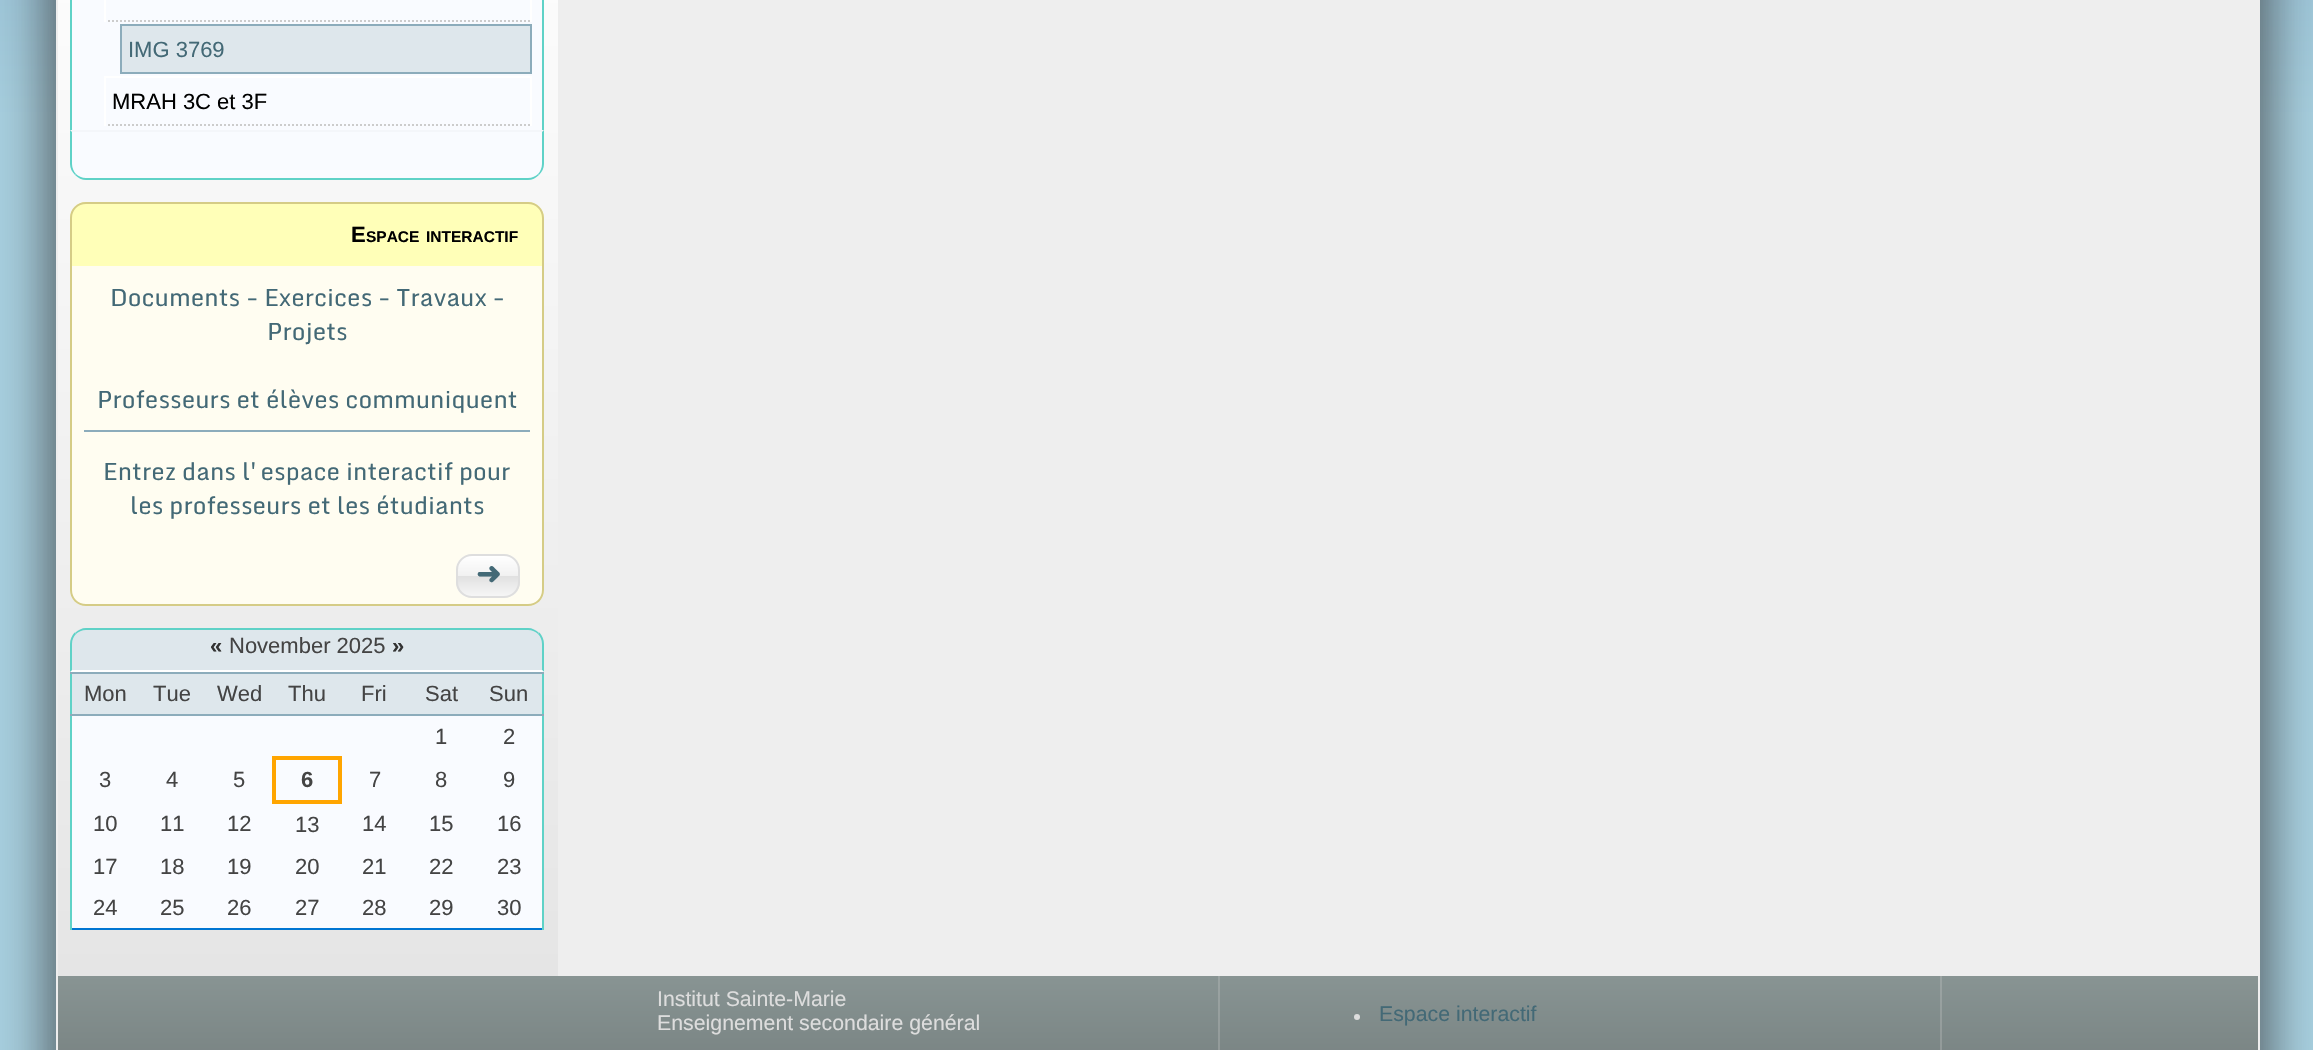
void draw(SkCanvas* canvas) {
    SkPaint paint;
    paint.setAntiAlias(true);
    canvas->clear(0xFFFFFFFF);
    {
        const SkColor colors[] = {0xFF23538A, 0xFFA7CFDF, 0xFFA7CFDF};
        const float stops[] = {0, 0.61f, 1};
        const SkPoint ends[] = {{1157, -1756}, {1157, 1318}};
        paint.setShader(SkGradientShader::MakeLinear(ends, colors, stops, 3, SkTileMode::kClamp));
        paint.setAlpha(255);
    }
    canvas->drawRect(SkRect::MakeXYWH(0, 0, 2313, 1050), paint);
    paint.setShader(nullptr);
    paint.setColor(0x80323232);
    paint.setMaskFilter(SkMaskFilter::MakeBlur(kNormal_SkBlurStyle, 24));
    canvas->drawRoundRect(SkRect::MakeXYWH(40, -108, 2204, 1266), 36, 36, paint);
    paint.setMaskFilter(nullptr);
    paint.setMaskFilter(SkMaskFilter::MakeBlur(kNormal_SkBlurStyle, 24));
    canvas->drawRoundRect(SkRect::MakeXYWH(72, -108, 2204, 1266), 36, 36, paint);
    paint.setMaskFilter(nullptr);
    paint.setColor(0xFFEEEEEE);
    canvas->drawRect(SkRect::MakeXYWH(56, 0, 2204, 1050), paint);
    {
        const SkColor colors[] = {0xFFE5E5E5, 0xFFFFFFFF, 0xFFFFFFFF, 0xFFE5E5E5};
        const float stops[] = {0.01f, 0.47f, 0.54f, 1};
        const SkPoint ends[] = {{308, -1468}, {308, 976}};
        paint.setShader(SkGradientShader::MakeLinear(ends, colors, stops, 4, SkTileMode::kClamp));
        paint.setAlpha(255);
    }
    canvas->drawRect(SkRect::MakeXYWH(58, 0, 500, 976), paint);
    paint.setShader(nullptr);
    paint.setColor(0xFFF9FBFF);
    canvas->drawRect(SkRect::MakeXYWH(72, 0, 470, 130), paint);
    paint.setColor(0xFF5FD2C7);
    canvas->drawRect(SkRect::MakeXYWH(542, 0, 2, 138), paint);
    canvas->drawRect(SkRect::MakeXYWH(70, 0, 2, 138), paint);
    paint.setColor(0xFFFFFFFF);
    canvas->drawRect(SkRect::MakeXYWH(530, 0, 2, 22), paint);
    paint.setStyle(SkPaint::kStroke_Style);
    paint.setStrokeWidth(2);
    paint.setColor(0xFFCCCCCC);
    paint.setPathEffect(SkDashPathEffect::Make({{2, 2}}, 0));
    canvas->drawPath(SkPathBuilder().moveTo(104, 21).lineTo(532, 21).detach(), paint);
    paint.setPathEffect(nullptr);
    paint.setStyle(SkPaint::kFill_Style);
    paint.setColor(0xFFFFFFFF);
    canvas->drawRect(SkRect::MakeXYWH(104, 0, 2, 22), paint);
    paint.setColor(0xFFDEE7EC);
    canvas->drawRect(SkRect::MakeXYWH(121, 25, 410, 48), paint);
    paint.setStyle(SkPaint::kStroke_Style);
    paint.setColor(0xFF8CACBB);
    canvas->drawRect(SkRect::MakeXYWH(121, 25, 410, 48), paint);
    SkFont font1(fontMgr->matchFamilyStyle("Liberation Sans", SkFontStyle::Normal()), 22);
    font1.setSubpixel(true);
    paint.setStyle(SkPaint::kFill_Style);
    paint.setColor(0xFF436976);
    canvas->drawString("IMG 3769", 128, 57, font1, paint);
    paint.setColor(0xFFFFFFFF);
    canvas->drawRect(SkRect::MakeXYWH(104, 76, 428, 2), paint);
    canvas->drawRect(SkRect::MakeXYWH(530, 76, 2, 50), paint);
    paint.setStyle(SkPaint::kStroke_Style);
    paint.setColor(0xFFCCCCCC);
    paint.setPathEffect(SkDashPathEffect::Make({{2, 2}}, 0));
    canvas->drawPath(SkPathBuilder().moveTo(104, 125).lineTo(532, 125).detach(), paint);
    paint.setPathEffect(nullptr);
    paint.setStyle(SkPaint::kFill_Style);
    paint.setColor(0xFFFFFFFF);
    canvas->drawRect(SkRect::MakeXYWH(104, 76, 2, 50), paint);
    paint.setColor(0xFF000000);
    canvas->drawString("MRAH 3C et 3F", 112, 109, font1, paint);
    paint.setColor(0xFFF9FBFF);
    canvas->drawPath(SkPathBuilder().moveTo(70, 130).lineTo(544, 130).lineTo(544, 164).cubicTo(544, 173, 537, 180, 528, 180).lineTo(86, 180).cubicTo(77, 180, 70, 173, 70, 164).close().detach(), paint);
    paint.setColor(0xFFF4F6FA);
    canvas->drawPath(SkPathBuilder().moveTo(70, 130).lineTo(72, 132).lineTo(542, 132).lineTo(544, 130).close().detach(), paint);
    paint.setColor(0xFF5FD2C7);
    canvas->drawPath(SkPathBuilder().moveTo(544, 130).lineTo(542, 132).lineTo(542, 164).cubicTo(542, 168, 540, 172, 538, 174).lineTo(539, 175).cubicTo(542, 172, 544, 168, 544, 164).close().detach(), paint);
    canvas->drawPath(SkPathBuilder().moveTo(86, 180).lineTo(528, 180).cubicTo(532, 180, 536, 178, 539, 175).lineTo(538, 174).cubicTo(536, 176, 532, 178, 528, 178).lineTo(86, 178).cubicTo(82, 178, 78, 176, 76, 174).lineTo(75, 175).cubicTo(78, 178, 82, 180, 86, 180).close().detach(), paint);
    canvas->drawPath(SkPathBuilder().moveTo(72, 132).lineTo(70, 130).lineTo(70, 164).cubicTo(70, 168, 72, 172, 75, 175).lineTo(76, 174).cubicTo(74, 172, 72, 168, 72, 164).close().detach(), paint);
    paint.setColor(0xFFFFFFB8);
    canvas->drawPath(SkPathBuilder().moveTo(86, 202).lineTo(528, 202).cubicTo(537, 202, 544, 209, 544, 218).lineTo(544, 266).lineTo(70, 266).lineTo(70, 218).cubicTo(70, 209, 77, 202, 86, 202).close().detach(), paint);
    paint.setColor(0xFFD5CC86);
    canvas->drawPath(SkPathBuilder(SkPathFillType::kEvenOdd).moveTo(86, 202).lineTo(528, 202).cubicTo(537, 202, 544, 209, 544, 218).lineTo(544, 266).lineTo(70, 266).lineTo(70, 218).cubicTo(70, 209, 77, 202, 86, 202).close().moveTo(86, 204).lineTo(528, 204).cubicTo(536, 204, 542, 210, 542, 218).lineTo(542, 266).lineTo(72, 266).lineTo(72, 218).cubicTo(72, 210, 78, 204, 86, 204).close().detach(), paint);
    SkFont font2(fontMgr->matchFamilyStyle("Liberation Sans", SkFontStyle::Bold()), 22);
    font2.setSubpixel(true);
    paint.setColor(0xFF000000);
    canvas->drawString("E", 351, 242, font2, paint);
    SkFont font3(fontMgr->matchFamilyStyle("Liberation Sans", SkFontStyle::Bold()), 15.5f);
    font3.setSubpixel(true);
    canvas->drawString("SPACE", 366, 242, font3, paint);
    canvas->drawString("INTERACTIF", 426, 242, font3, paint);
    paint.setColor(0xFFFFFDF1);
    canvas->drawRect(SkRect::MakeXYWH(72, 266, 470, 282), paint);
    paint.setColor(0xFFD5CC86);
    canvas->drawRect(SkRect::MakeXYWH(542, 266, 2, 282), paint);
    canvas->drawRect(SkRect::MakeXYWH(70, 266, 2, 282), paint);
    SkFont font4(fontMgr->matchFamilyStyle("Monda", SkFontStyle::Normal()), 24);
    font4.setSubpixel(true);
    paint.setColor(0xFF436976);
    canvas->drawString("Documents - Exercices - Travaux -", 110, 306, font4, paint);
    canvas->drawString("Projets", 267, 340, font4, paint);
    canvas->drawString("Professeurs et élèves communiquent", 97, 408, font4, paint);
    paint.setColor(0xFF8CACBB);
    canvas->drawRect(SkRect::MakeXYWH(84, 430, 446, 2), paint);
    paint.setColor(0xFF436976);
    canvas->drawString("Entrez dans l'espace interactif pour", 103, 480, font4, paint);
    canvas->drawString("les professeurs et les étudiants", 130, 514, font4, paint);
    paint.setColor(0xFFFFFDF1);
    canvas->drawPath(SkPathBuilder().moveTo(70, 548).lineTo(544, 548).lineTo(544, 590).cubicTo(544, 599, 537, 606, 528, 606).lineTo(86, 606).cubicTo(77, 606, 70, 599, 70, 590).close().detach(), paint);
    paint.setColor(0xFFD5CC86);
    canvas->drawPath(SkPathBuilder(SkPathFillType::kEvenOdd).moveTo(70, 548).lineTo(544, 548).lineTo(544, 590).cubicTo(544, 599, 537, 606, 528, 606).lineTo(86, 606).cubicTo(77, 606, 70, 599, 70, 590).close().moveTo(72, 548).lineTo(542, 548).lineTo(542, 590).cubicTo(542, 598, 536, 604, 528, 604).lineTo(86, 604).cubicTo(78, 604, 72, 598, 72, 590).close().detach(), paint);
    canvas->save();
    canvas->clipPath(SkPathBuilder().moveTo(472, 554).lineTo(504, 554).cubicTo(513, 554, 520, 561, 520, 570).lineTo(520, 582).cubicTo(520, 591, 513, 598, 504, 598).lineTo(472, 598).cubicTo(463, 598, 456, 591, 456, 582).lineTo(456, 570).cubicTo(456, 561, 463, 554, 472, 554).close().detach(), true);
    {
        const SkColor colors[] = {0xFFFFFFFF, 0xFFF1F1F1, 0xFFE1E1E1, 0xFFF6F6F6};
        const float stops[] = {0, 0.5f, 0.51f, 1};
        const SkPoint ends[] = {{488, 556}, {488, 596}};
        paint.setShader(SkGradientShader::MakeLinear(ends, colors, stops, 4, SkTileMode::kClamp));
        paint.setAlpha(255);
    }
    canvas->drawRect(SkRect::MakeXYWH(456, 556, 64, 40), paint);
    canvas->restore();
    paint.setStyle(SkPaint::kStroke_Style);
    paint.setShader(nullptr);
    paint.setColor(0xFFDEDEDE);
    canvas->drawRoundRect(SkRect::MakeXYWH(457, 555, 62, 42), 15, 15, paint);
    SkFont font5(fontMgr->matchFamilyStyle("DejaVu Sans", SkFontStyle::Bold()), 30);
    font5.setSubpixel(true);
    paint.setStyle(SkPaint::kFill_Style);
    paint.setColor(0xFF436976);
    canvas->drawString("➜", 476, 584, font5, paint);
    paint.setColor(0xFFDEE7EC);
    canvas->drawPath(SkPathBuilder().moveTo(86, 628).lineTo(528, 628).cubicTo(537, 628, 544, 635, 544, 644).lineTo(544, 672).lineTo(70, 672).lineTo(70, 644).cubicTo(70, 635, 77, 628, 86, 628).close().detach(), paint);
    paint.setColor(0xFF5FD2C7);
    canvas->drawPath(SkPathBuilder().moveTo(86, 628).cubicTo(82, 628, 78, 630, 75, 633).lineTo(76, 634).cubicTo(78, 632, 82, 630, 86, 630).lineTo(528, 630).cubicTo(532, 630, 536, 632, 538, 634).lineTo(539, 633).cubicTo(536, 630, 532, 628, 528, 628).close().detach(), paint);
    canvas->drawPath(SkPathBuilder().moveTo(544, 672).lineTo(544, 644).cubicTo(544, 639.5f, 542, 635.5f, 539.5f, 632.5f).lineTo(538, 634).cubicTo(540.5f, 636.5f, 542, 640, 542, 644).lineTo(542, 670).close().detach(), paint);
    paint.setColor(0xFFFFFFFF);
    canvas->drawPath(SkPathBuilder().moveTo(544, 672).lineTo(542, 670).lineTo(72, 670).lineTo(70, 672).close().detach(), paint);
    paint.setColor(0xFF5FD2C7);
    canvas->drawPath(SkPathBuilder().moveTo(70, 672).lineTo(72, 670).lineTo(72, 644).cubicTo(72, 640, 73.5f, 636.5f, 76, 634).lineTo(74.5f, 632.5f).cubicTo(72, 635.5f, 70, 639.5f, 70, 644).close().detach(), paint);
    paint.setColor(0xFF333333);
    canvas->drawString("«", 210, 653, font2, paint);
    paint.setColor(0xFF444444);
    canvas->drawString("November 2025", 229, 653, font1, paint);
    paint.setColor(0xFF333333);
    canvas->drawString("»", 392, 653, font2, paint);
    paint.setColor(0xFFF9FBFF);
    canvas->drawRect(SkRect::MakeXYWH(72, 716, 470, 212), paint);
    paint.setColor(0xFF5FD2C7);
    canvas->drawRect(SkRect::MakeXYWH(542, 672, 2, 258), paint);
    canvas->drawRect(SkRect::MakeXYWH(70, 672, 2, 258), paint);
    paint.setColor(0xFF0075D2);
    canvas->drawRect(SkRect::MakeXYWH(72, 928, 470, 2), paint);
    paint.setColor(0xFFDEE7EC);
    canvas->drawRect(SkRect::MakeXYWH(72, 674, 470, 40), paint);
    paint.setColor(0xFF444444);
    canvas->drawString("Mon", 84, 701, font1, paint);
    canvas->drawString("Tue", 153, 701, font1, paint);
    canvas->drawString("Wed", 217, 701, font1, paint);
    canvas->drawString("Thu", 288, 701, font1, paint);
    canvas->drawString("Fri", 361, 701, font1, paint);
    canvas->drawString("Sat", 425, 701, font1, paint);
    paint.setColor(0xFF8CACBB);
    canvas->drawRect(SkRect::MakeXYWH(70, 672, 474, 2), paint);
    canvas->drawRect(SkRect::MakeXYWH(70, 714, 474, 2), paint);
    paint.setColor(0xFF444444);
    canvas->drawString("Sun", 489, 701, font1, paint);
    canvas->drawString("1", 435, 744, font1, paint);
    canvas->drawString("2", 503, 744, font1, paint);
    canvas->drawString("3", 99, 787, font1, paint);
    canvas->drawString("4", 166, 787, font1, paint);
    canvas->drawString("5", 233, 787, font1, paint);
    paint.setColor(0xFFFFA500);
    canvas->drawRect(SkRect::MakeXYWH(272, 756, 70, 4), paint);
    canvas->drawRect(SkRect::MakeXYWH(338, 756, 4, 48), paint);
    canvas->drawRect(SkRect::MakeXYWH(272, 800, 70, 4), paint);
    canvas->drawRect(SkRect::MakeXYWH(272, 756, 4, 48), paint);
    paint.setColor(0xFF444444);
    canvas->drawString("6", 301, 787, font2, paint);
    canvas->drawString("7", 369, 787, font1, paint);
    canvas->drawString("8", 435, 787, font1, paint);
    canvas->drawString("9", 503, 787, font1, paint);
    canvas->drawString("10", 93, 831, font1, paint);
    canvas->drawString("11", 160, 831, font1, paint);
    canvas->drawString("12", 227, 831, font1, paint);
    canvas->drawString("13", 295, 832, font1, paint);
    canvas->drawString("14", 362, 831, font1, paint);
    canvas->drawString("15", 429, 831, font1, paint);
    canvas->drawString("16", 497, 831, font1, paint);
    canvas->drawString("17", 93, 874, font1, paint);
    canvas->drawString("18", 160, 874, font1, paint);
    canvas->drawString("19", 227, 874, font1, paint);
    canvas->drawString("20", 295, 874, font1, paint);
    canvas->drawString("21", 362, 874, font1, paint);
    canvas->drawString("22", 429, 874, font1, paint);
    canvas->drawString("23", 497, 874, font1, paint);
    canvas->drawString("24", 93, 915, font1, paint);
    canvas->drawString("25", 160, 915, font1, paint);
    canvas->drawString("26", 227, 915, font1, paint);
    canvas->drawString("27", 295, 915, font1, paint);
    canvas->drawString("28", 362, 915, font1, paint);
    canvas->drawString("29", 429, 915, font1, paint);
    canvas->drawString("30", 497, 915, font1, paint);
    {
        const SkColor colors[] = {0xFF889493, 0xFF555C5C};
        const float stops[] = {0, 1};
        const SkPoint ends[] = {{1158, 976}, {1158, 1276}};
        paint.setShader(SkGradientShader::MakeLinear(ends, colors, stops, 2, SkTileMode::kClamp));
        paint.setAlpha(255);
    }
    canvas->drawRect(SkRect::MakeXYWH(58, 976, 2200, 74), paint);
    {
        const SkColor colors[] = {0xFF9BA4A3, 0xFF787C7C};
        const float stops[] = {0, 1};
        const SkPoint ends[] = {{1158, 976}, {1158, 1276}};
        paint.setShader(SkGradientShader::MakeLinear(ends, colors, stops, 2, SkTileMode::kClamp));
        paint.setAlpha(255);
    }
    canvas->drawRect(SkRect::MakeXYWH(1940, 976, 2, 74), paint);
    canvas->drawRect(SkRect::MakeXYWH(1218, 976, 2, 74), paint);
    SkFont font6(fontMgr->matchFamilyStyle("Liberation Sans", SkFontStyle::Normal()), 21.3f);
    font6.setSubpixel(true);
    paint.setShader(nullptr);
    paint.setColor(0xFFDDDDDD);
    canvas->drawString("Institut Sainte-Marie", 657, 1006, font6, paint);
    canvas->drawString("Enseignement secondaire général", 657, 1030, font6, paint);
    canvas->drawCircle(1357, 1017, 3, paint);
    paint.setColor(0xFF436976);
    canvas->drawString("Espace interactif", 1379, 1021, font6, paint);
}
